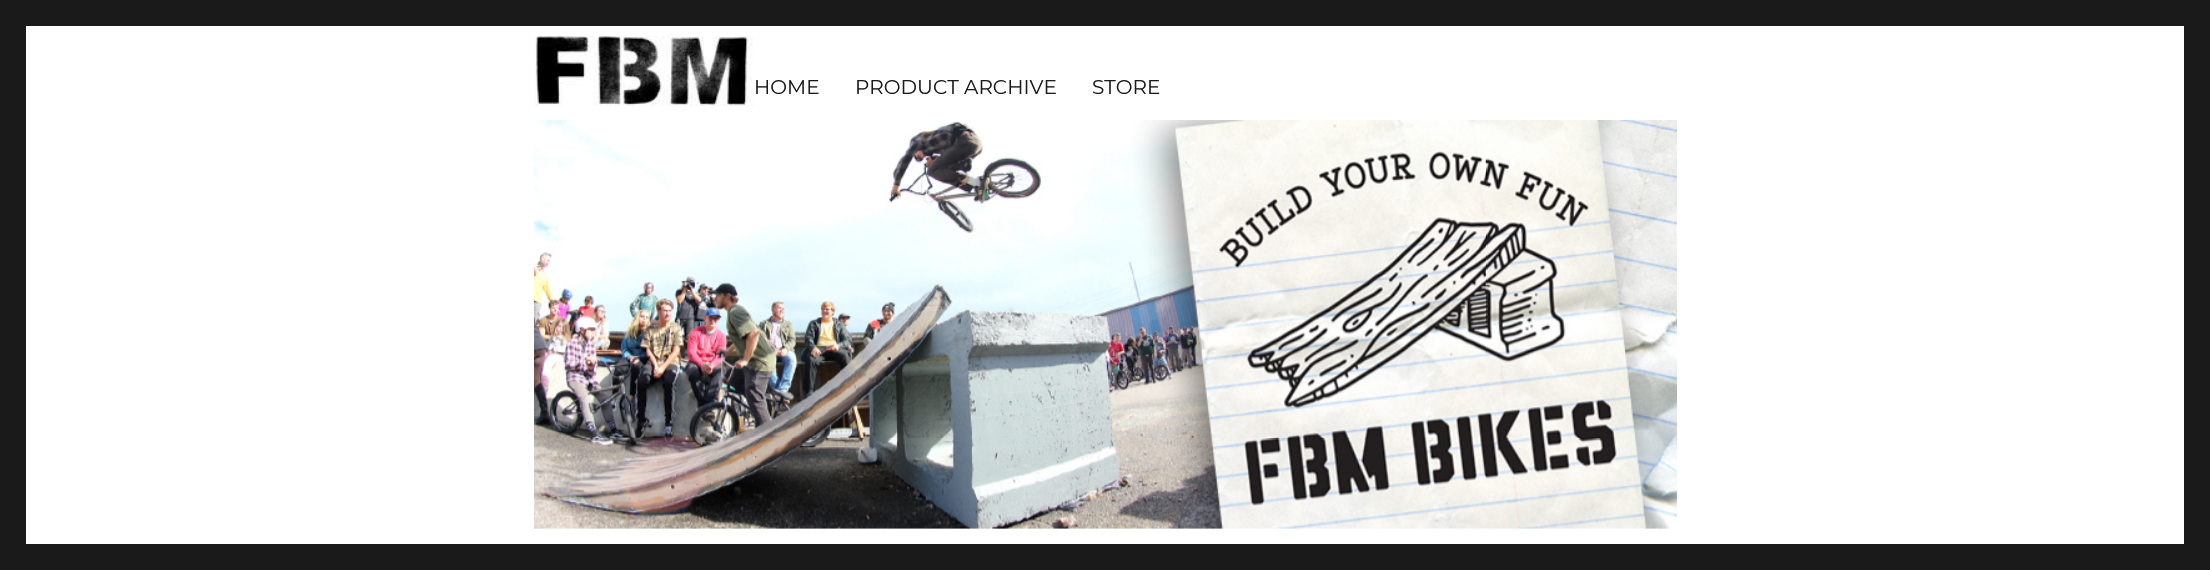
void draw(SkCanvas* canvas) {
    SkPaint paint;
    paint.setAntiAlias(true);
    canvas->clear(0xFF1A1A1A);
    paint.setColor(0xFFFFFFFF);
    canvas->drawRect(SkRect::MakeXYWH(26, 26, 2158, 518), paint);
    canvas->drawImageRect(SkImages::DeferredFromEncodedData(SkData::MakeFromFileName("img1.png")), SkRect::MakeXYWH(534, 36, 220, 70), SkSamplingOptions());
    SkFont font1(fontMgr->matchFamilyStyle("Montserrat", SkFontStyle(100, SkFontStyle::kNormal_Width, SkFontStyle::kUpright_Slant)), 20);
    font1.setSubpixel(true);
    paint.setColor(0xFF1A1A1A);
    canvas->drawString("HOME", 754, 94, font1, paint);
    canvas->drawString("PRODUCT ARCHIVE", 855, 94, font1, paint);
    canvas->drawString("STORE", 1092, 94, font1, paint);
    canvas->drawImageRect(SkImages::DeferredFromEncodedData(SkData::MakeFromFileName("img2.png")), SkRect::MakeXYWH(534, 120, 1143, 409), SkSamplingOptions());
}
